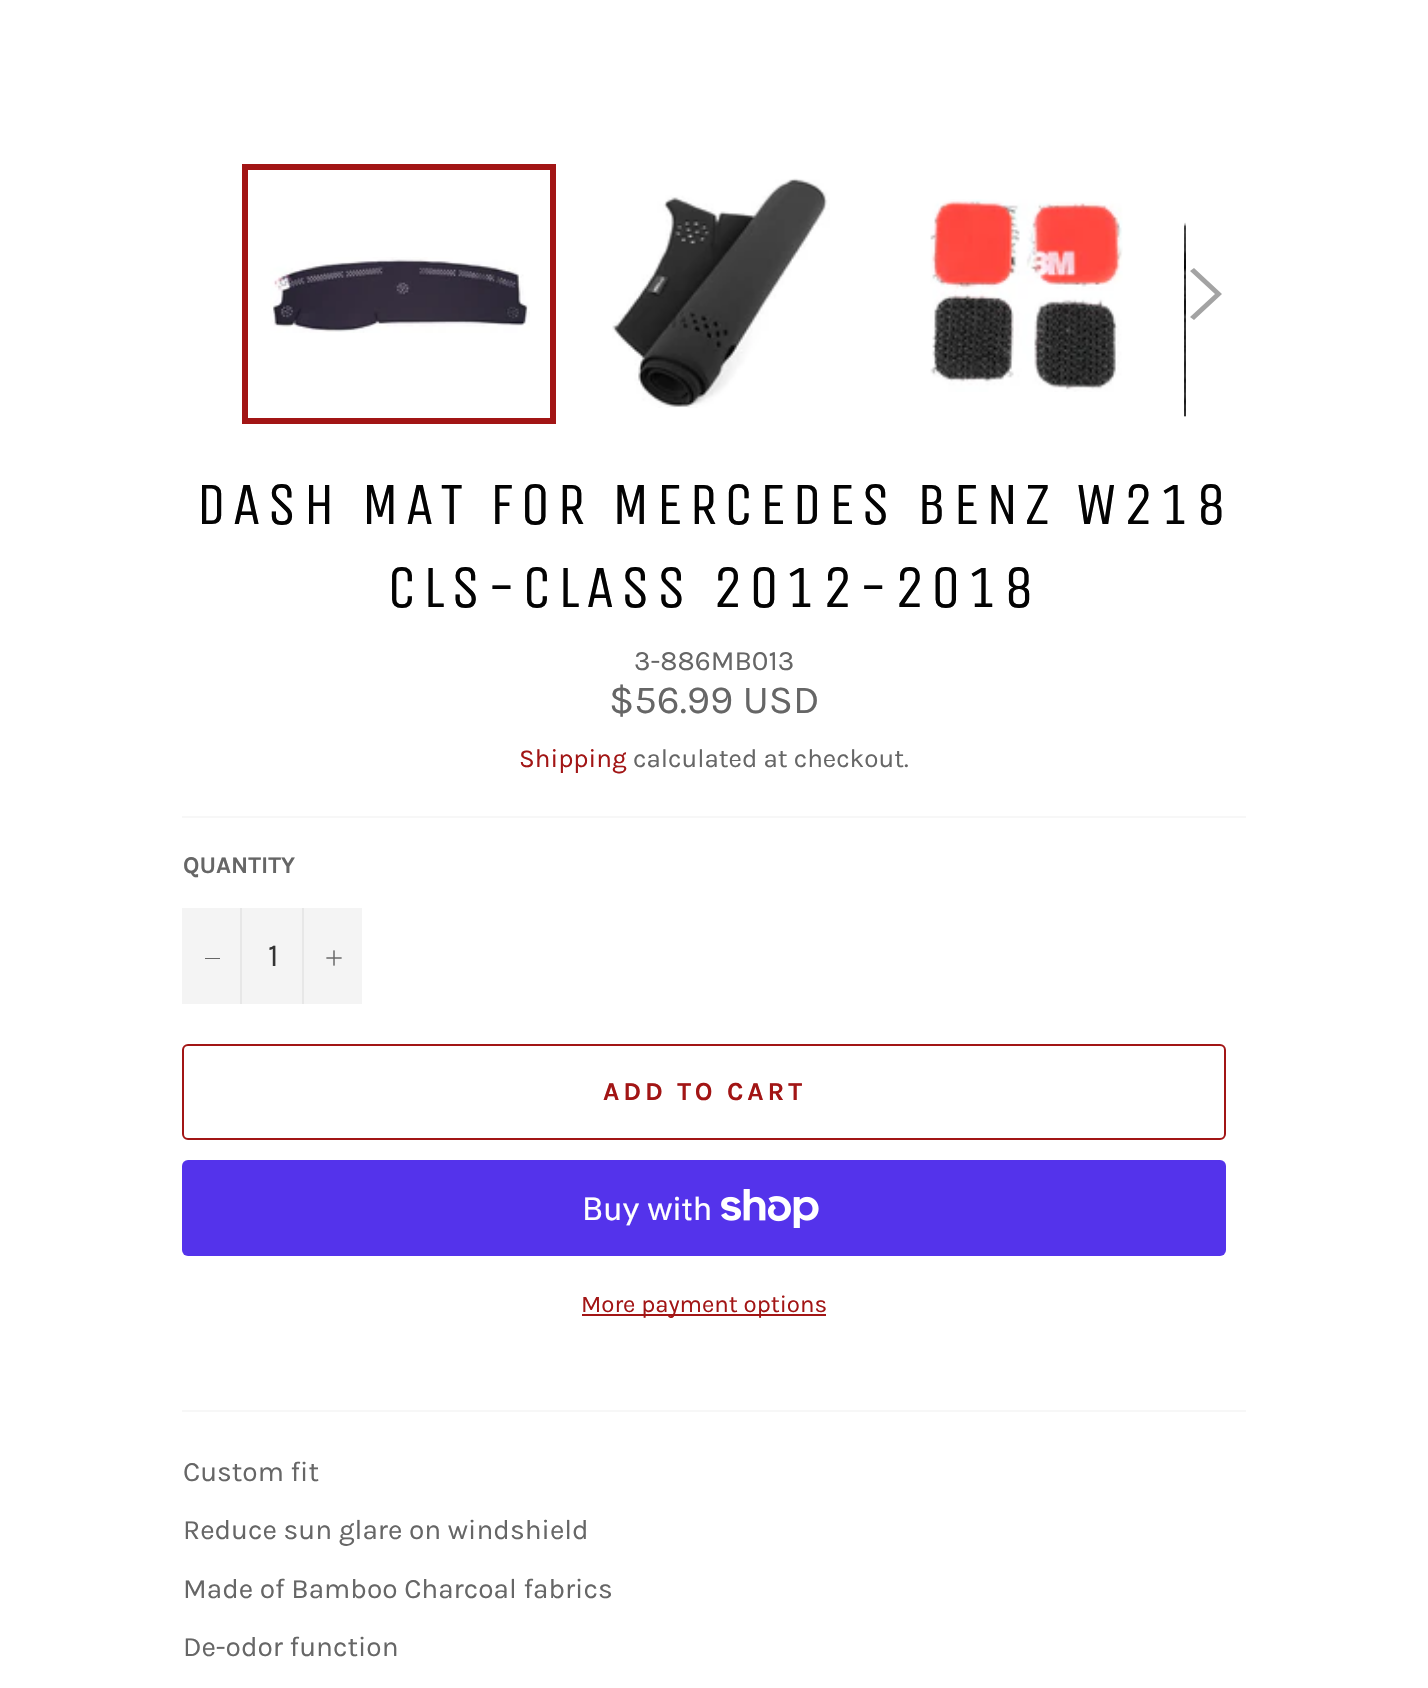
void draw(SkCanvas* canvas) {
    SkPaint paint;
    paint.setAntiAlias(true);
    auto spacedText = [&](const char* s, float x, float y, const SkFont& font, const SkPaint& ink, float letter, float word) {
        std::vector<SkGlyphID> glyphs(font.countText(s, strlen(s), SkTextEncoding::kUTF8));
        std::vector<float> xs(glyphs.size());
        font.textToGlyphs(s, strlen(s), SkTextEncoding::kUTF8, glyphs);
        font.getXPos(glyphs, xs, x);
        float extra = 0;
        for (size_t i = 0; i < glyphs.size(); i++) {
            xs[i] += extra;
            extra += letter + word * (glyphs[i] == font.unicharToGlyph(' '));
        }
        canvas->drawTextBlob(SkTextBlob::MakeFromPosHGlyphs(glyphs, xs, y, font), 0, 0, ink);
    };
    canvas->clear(0xFFFFFFFF);
    canvas->drawImageRect(SkImages::DeferredFromEncodedData(SkData::MakeFromFileName("img1.png")), SkRect::MakeXYWH(270, 257, 260, 76), SkSamplingOptions());
    paint.setStyle(SkPaint::kStroke_Style);
    paint.setStrokeWidth(6);
    paint.setColor(0xFFA21515);
    canvas->drawRect(SkRect::MakeXYWH(245, 167, 308, 254), paint);
    canvas->drawImageRect(SkImages::DeferredFromEncodedData(SkData::MakeFromFileName("img2.png")), SkRect::MakeXYWH(612, 178, 218, 230), SkSamplingOptions());
    canvas->drawImageRect(SkImages::DeferredFromEncodedData(SkData::MakeFromFileName("img3.png")), SkRect::MakeXYWH(930, 199, 193, 193), SkSamplingOptions());
    canvas->drawImageRect(SkImages::DeferredFromEncodedData(SkData::MakeFromFileName("img4.png")), SkRect::MakeXYWH(1184, 222, 2, 195), SkSamplingOptions());
    paint.setStyle(SkPaint::kFill_Style);
    paint.setColor(0xFFA3A3A3);
    canvas->drawPath(SkPathBuilder().moveTo(1190, 271).lineTo(1194, 268).lineTo(1222, 294).lineTo(1194, 320).lineTo(1190, 317).lineTo(1215, 294).close().detach(), paint);
    SkFont font1(fontMgr->matchFamilyStyle("Unica One", SkFontStyle::Normal()), 60);
    font1.setSubpixel(true);
    paint.setColor(0xFF030303);
    spacedText("DASH MAT FOR MERCEDES BENZ W218", 196, 524, font1, paint, 6, 0);
    spacedText("CLS-CLASS 2012-2018", 387, 607, font1, paint, 6, 0);
    SkFont font2(fontMgr->matchFamilyStyle("Karla", SkFontStyle::Normal()), 28);
    font2.setSubpixel(true);
    paint.setColor(0xFF666666);
    canvas->drawString("3-886MB013", 634, 670, font2, paint);
    SkFont font3(fontMgr->matchFamilyStyle("Karla", SkFontStyle::Normal()), 40);
    font3.setSubpixel(true);
    canvas->drawString("$56.99 USD", 609, 713, font3, paint);
    SkFont font4(fontMgr->matchFamilyStyle("Karla", SkFontStyle::Normal()), 26);
    font4.setSubpixel(true);
    paint.setColor(0xFFA21515);
    canvas->drawString("Shipping", 519, 767, font4, paint);
    paint.setColor(0xFF666666);
    canvas->drawString("calculated at checkout.", 633, 767, font4, paint);
    paint.setColor(0xFFF7F7F7);
    canvas->drawRect(SkRect::MakeXYWH(182, 816, 1064, 2), paint);
    SkFont font5(fontMgr->matchFamilyStyle("Karla", SkFontStyle::Bold()), 24);
    font5.setSubpixel(true);
    paint.setColor(0xFF666666);
    canvas->drawString("QUANTITY", 183, 873, font5, paint);
    paint.setColor(0xFFF4F4F4);
    canvas->drawRect(SkRect::MakeXYWH(182, 908, 180, 96), paint);
    paint.setColor(0xFFE7E7E7);
    canvas->drawRect(SkRect::MakeXYWH(240, 908, 2, 96), paint);
    paint.setColor(0xFF666666);
    canvas->drawRect(SkRect::MakeXYWH(205, 958, 15, 1), paint);
    SkFont font6(fontMgr->matchFamilyStyle("Karla", SkFontStyle::Normal()), 32);
    font6.setSubpixel(true);
    paint.setColor(0xFF333333);
    canvas->drawString("1", 268, 966, font6, paint);
    paint.setColor(0xFFE7E7E7);
    canvas->drawRect(SkRect::MakeXYWH(302, 908, 2, 96), paint);
    canvas->drawImageRect(SkImages::DeferredFromEncodedData(SkData::MakeFromFileName("img5.png")), SkRect::MakeXYWH(326, 950, 16, 16), SkSamplingOptions());
    paint.setStyle(SkPaint::kStroke_Style);
    paint.setStrokeWidth(2);
    paint.setColor(0xFFA21515);
    canvas->drawRoundRect(SkRect::MakeXYWH(183, 1045, 1042, 94), 5, 5, paint);
    SkFont font7(fontMgr->matchFamilyStyle("Karla", SkFontStyle::Bold()), 26);
    font7.setSubpixel(true);
    paint.setStyle(SkPaint::kFill_Style);
    spacedText("ADD TO CART", 603, 1100, font7, paint, 3.9f, 0);
    paint.setColor(0xFF5433EB);
    canvas->drawRoundRect(SkRect::MakeXYWH(182, 1160, 1044, 96), 6, 6, paint);
    SkFont font8(fontMgr->matchFamilyStyle("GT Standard", SkFontStyle::Normal()), 32);
    font8.setSubpixel(true);
    paint.setColor(0xFFFFFFFF);
    canvas->drawString("Buy with", 582, 1220, font8, paint);
    canvas->drawImageRect(SkImages::DeferredFromEncodedData(SkData::MakeFromFileName("img6.png")), SkRect::MakeXYWH(721, 1189, 98, 39), SkSamplingOptions());
    paint.setColor(0xFFA21515);
    canvas->drawRect(SkRect::MakeXYWH(582, 1314, 244, 2), paint);
    SkFont font9(fontMgr->matchFamilyStyle("Karla", SkFontStyle::Normal()), 24);
    font9.setSubpixel(true);
    canvas->drawString("More payment options", 581, 1312, font9, paint);
    paint.setColor(0xFFF7F7F7);
    canvas->drawRect(SkRect::MakeXYWH(182, 1410, 1064, 2), paint);
    paint.setColor(0xFF666666);
    canvas->drawString("Custom fit", 183, 1481, font2, paint);
    canvas->drawString("Reduce sun glare on windshield", 183, 1539, font2, paint);
    canvas->drawString("Made of Bamboo Charcoal fabrics", 183, 1598, font2, paint);
    canvas->drawString("De-odor function", 183, 1656, font2, paint);
}
